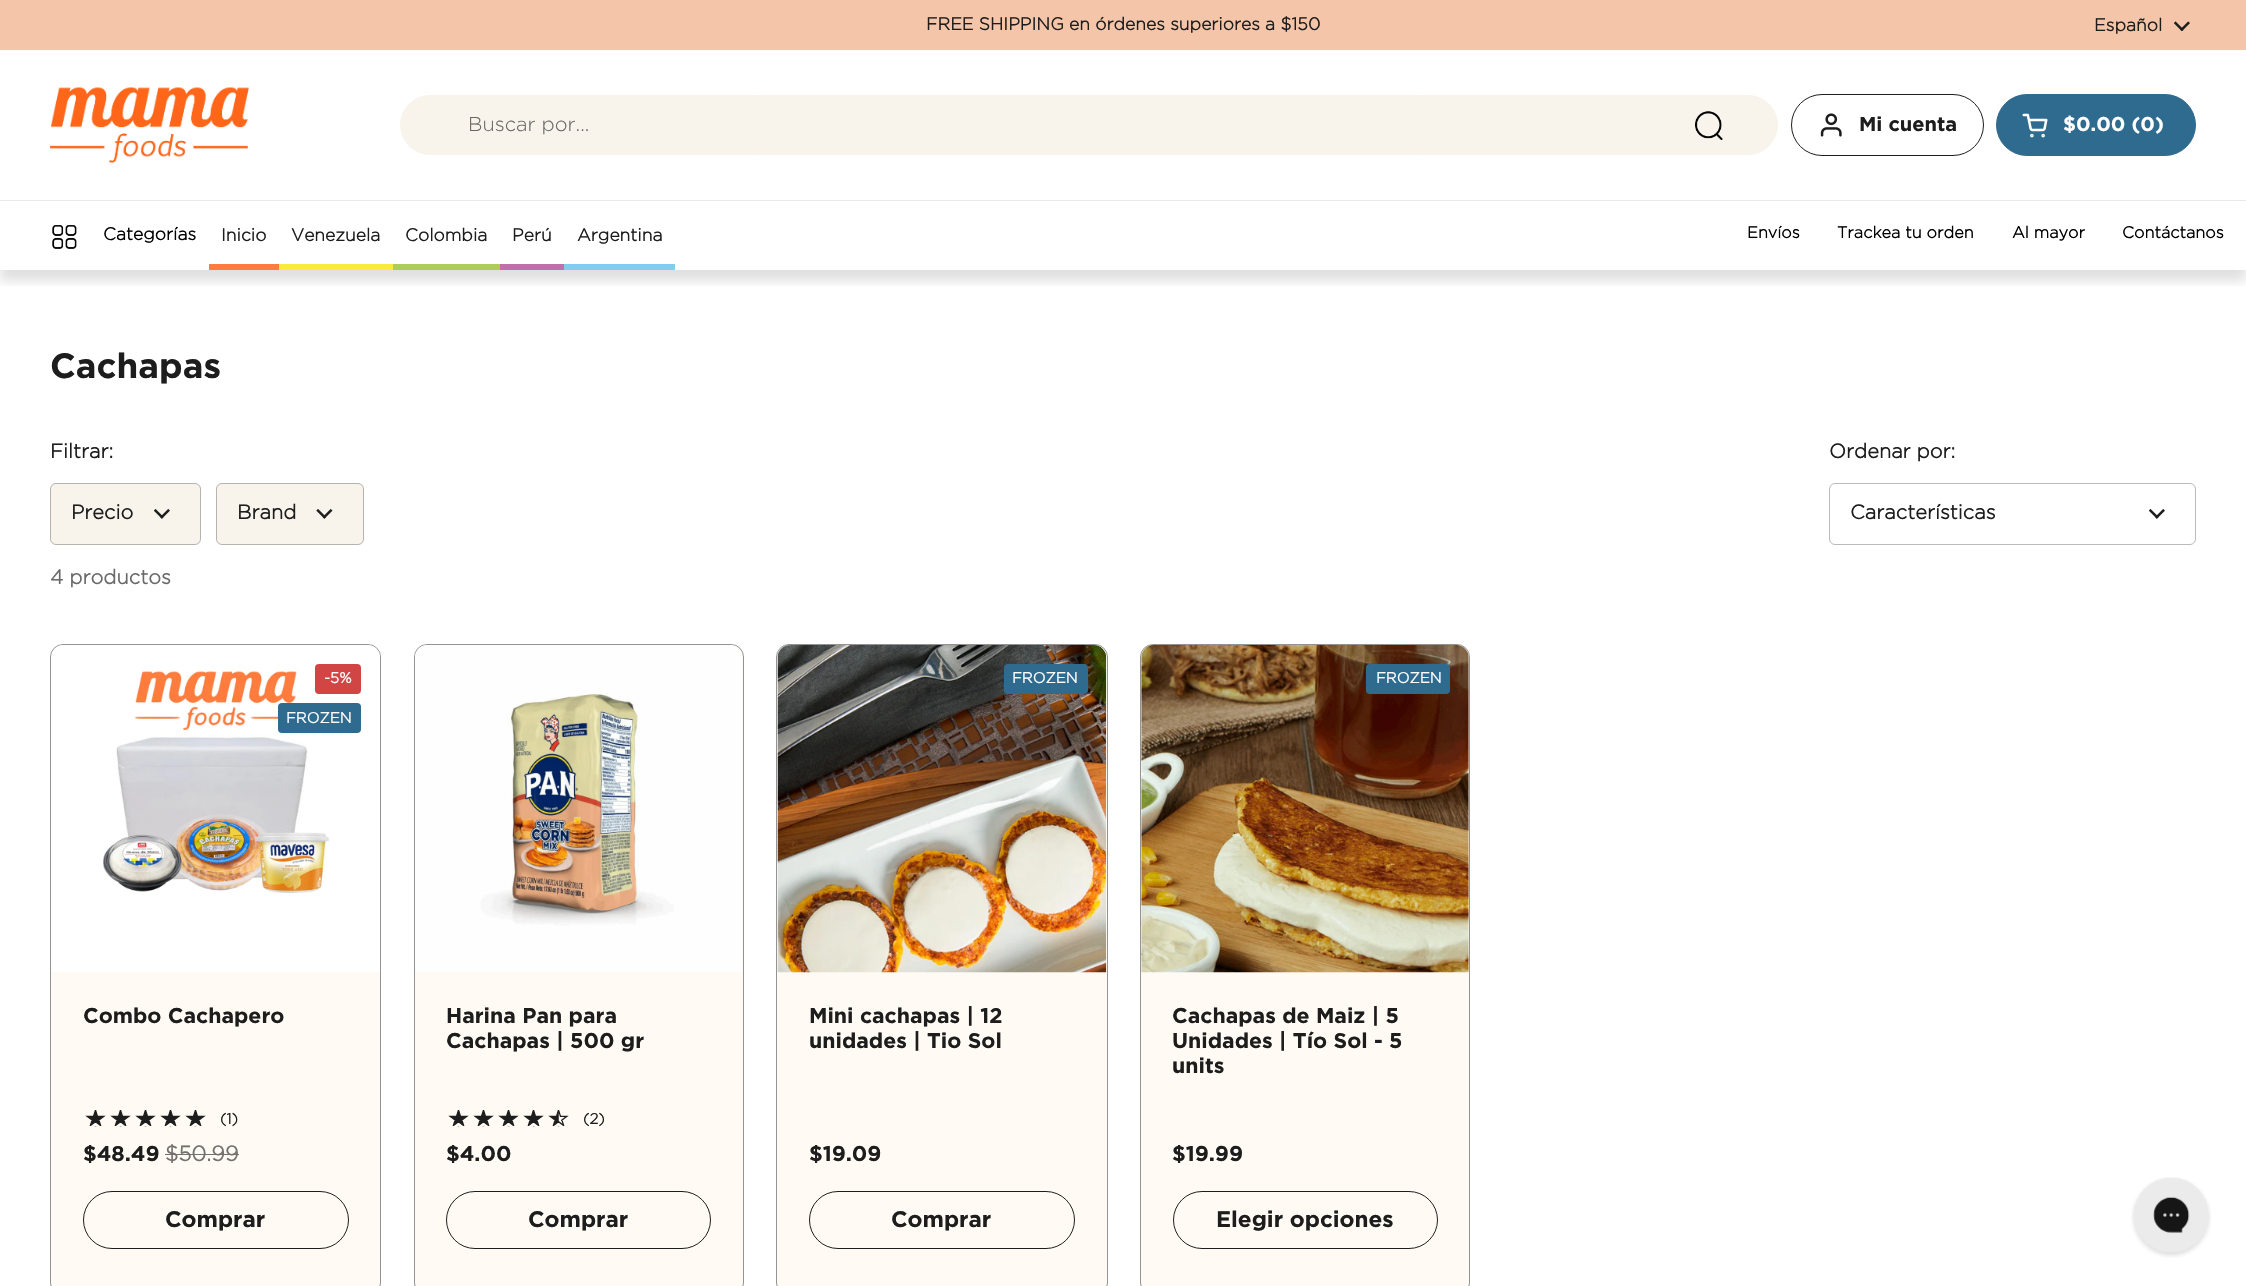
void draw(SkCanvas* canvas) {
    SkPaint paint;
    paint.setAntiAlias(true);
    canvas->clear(0xFFFFFFFF);
    paint.setColor(0xFFF4C5A8);
    canvas->drawRect(SkRect::MakeXYWH(0, 0, 2246, 50), paint);
    SkFont font1(fontMgr->matchFamilyStyle("Gotham", SkFontStyle::Bold()), 17.5f);
    font1.setSubpixel(true);
    paint.setColor(0xFF1D1D1D);
    canvas->drawString("FREE SHIPPING en órdenes superiores a $150", 926, 30, font1, paint);
    canvas->drawString("Español", 2094, 31, font1, paint);
    canvas->drawImageRect(SkImages::DeferredFromEncodedData(SkData::MakeFromFileName("img1.png")), SkRect::MakeXYWH(2174, 21, 16, 10), SkSamplingOptions());
    canvas->save();
    canvas->clipRect(SkRect::MakeXYWH(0, 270, 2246, 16));
    paint.setColor(0x1F000000);
    paint.setMaskFilter(SkMaskFilter::MakeBlur(kNormal_SkBlurStyle, 5.5f));
    canvas->drawRect(SkRect::MakeXYWH(0, 203, 2246, 78), paint);
    paint.setMaskFilter(nullptr);
    canvas->restore();
    paint.setColor(0xFFE8E8E8);
    canvas->drawRect(SkRect::MakeXYWH(0, 200, 2246, 1), paint);
    canvas->drawImageRect(SkImages::DeferredFromEncodedData(SkData::MakeFromFileName("img2.png")), SkRect::MakeXYWH(50, 87, 199, 76), SkSamplingOptions());
    paint.setColor(0xFFF8F4EC);
    canvas->drawRoundRect(SkRect::MakeXYWH(400.5f, 95.5f, 1377, 59), 29.5f, 29.5f, paint);
    paint.setStyle(SkPaint::kStroke_Style);
    paint.setStrokeWidth(1);
    canvas->drawRoundRect(SkRect::MakeXYWH(400.5f, 95.5f, 1377, 59), 29.5f, 29.5f, paint);
    SkFont font2(fontMgr->matchFamilyStyle("Gotham", SkFontStyle(300, SkFontStyle::kNormal_Width, SkFontStyle::kUpright_Slant)), 20);
    font2.setSubpixel(true);
    paint.setStyle(SkPaint::kFill_Style);
    paint.setColor(0xFF676663);
    canvas->drawString("Buscar por...", 468, 131, font2, paint);
    canvas->drawImageRect(SkImages::DeferredFromEncodedData(SkData::MakeFromFileName("img3.png")), SkRect::MakeXYWH(1695, 111, 28, 29), SkSamplingOptions());
    paint.setStyle(SkPaint::kStroke_Style);
    paint.setColor(0xFF1D1D1D);
    canvas->drawRoundRect(SkRect::MakeXYWH(1791.5f, 94.5f, 192, 61), 30.5f, 30.5f, paint);
    canvas->drawImageRect(SkImages::DeferredFromEncodedData(SkData::MakeFromFileName("img4.png")), SkRect::MakeXYWH(1820, 113, 22, 24), SkSamplingOptions());
    SkFont font3(fontMgr->matchFamilyStyle("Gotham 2", SkFontStyle::Bold()), 20);
    font3.setSubpixel(true);
    paint.setStyle(SkPaint::kFill_Style);
    canvas->drawString("Mi cuenta", 1859, 131, font3, paint);
    paint.setColor(0xFF2F6A8F);
    canvas->drawRoundRect(SkRect::MakeXYWH(1996.5f, 94.5f, 199, 61), 30.5f, 30.5f, paint);
    paint.setStyle(SkPaint::kStroke_Style);
    canvas->drawRoundRect(SkRect::MakeXYWH(1996.5f, 94.5f, 199, 61), 30.5f, 30.5f, paint);
    canvas->drawImageRect(SkImages::DeferredFromEncodedData(SkData::MakeFromFileName("img5.png")), SkRect::MakeXYWH(2022, 113, 26, 25), SkSamplingOptions());
    paint.setStyle(SkPaint::kFill_Style);
    paint.setColor(0xFFFFFFFF);
    canvas->drawString("$0.00 (0)", 2063, 131, font3, paint);
    canvas->drawImageRect(SkImages::DeferredFromEncodedData(SkData::MakeFromFileName("img6.png")), SkRect::MakeXYWH(52, 225, 25, 24), SkSamplingOptions());
    paint.setColor(0xFF000000);
    canvas->drawString("Categorías", 103, 240, font1, paint);
    paint.setColor(0xFFFE7C3D);
    canvas->drawRect(SkRect::MakeXYWH(209, 264, 70, 6), paint);
    paint.setColor(0xFF1D1D1D);
    canvas->drawString("Inicio", 221, 241, font1, paint);
    paint.setColor(0xFFF9EA3E);
    canvas->drawRect(SkRect::MakeXYWH(279, 264, 114, 6), paint);
    paint.setColor(0xFF1D1D1D);
    canvas->drawString("Venezuela", 291, 241, font1, paint);
    paint.setColor(0xFFAECD58);
    canvas->drawRect(SkRect::MakeXYWH(393, 264, 107, 6), paint);
    paint.setColor(0xFF1D1D1D);
    canvas->drawString("Colombia", 405, 241, font1, paint);
    paint.setColor(0xFFC26EAA);
    canvas->drawRect(SkRect::MakeXYWH(500, 264, 64, 6), paint);
    paint.setColor(0xFF1D1D1D);
    canvas->drawString("Perú", 512, 241, font1, paint);
    paint.setColor(0xFF80CEEB);
    canvas->drawRect(SkRect::MakeXYWH(564, 264, 111, 6), paint);
    paint.setColor(0xFF1D1D1D);
    canvas->drawString("Argentina", 577, 241, font1, paint);
    SkFont font4(fontMgr->matchFamilyStyle("Gotham", SkFontStyle::Bold()), 16.25f);
    font4.setSubpixel(true);
    paint.setColor(0xFF000000);
    canvas->drawString("Envíos", 1747, 238, font4, paint);
    canvas->drawString("Trackea tu orden", 1837, 238, font4, paint);
    canvas->drawString("Al mayor", 2012, 238, font4, paint);
    canvas->drawString("Contáctanos", 2122, 238, font4, paint);
    SkFont font5(fontMgr->matchFamilyStyle("Gotham 2", SkFontStyle::Bold()), 35);
    font5.setSubpixel(true);
    paint.setColor(0xFF1D1D1D);
    canvas->drawString("Cachapas", 50, 378, font5, paint);
    SkFont font6(fontMgr->matchFamilyStyle("Gotham", SkFontStyle::Bold()), 20);
    font6.setSubpixel(true);
    canvas->drawString("Filtrar:", 50, 458, font6, paint);
    paint.setColor(0xFFF8F4EC);
    canvas->drawRoundRect(SkRect::MakeXYWH(50, 483, 151, 62), 6, 6, paint);
    canvas->drawImageRect(SkImages::DeferredFromEncodedData(SkData::MakeFromFileName("img7.png")), SkRect::MakeXYWH(154, 509, 16, 10), SkSamplingOptions());
    paint.setStyle(SkPaint::kStroke_Style);
    paint.setColor(0x4D1D1D1D);
    canvas->drawRoundRect(SkRect::MakeXYWH(50.5f, 483.5f, 150, 61), 5.5f, 5.5f, paint);
    paint.setStyle(SkPaint::kFill_Style);
    paint.setColor(0xFF1D1D1D);
    canvas->drawString("Precio", 71, 519, font6, paint);
    paint.setColor(0xFFF8F4EC);
    canvas->drawRoundRect(SkRect::MakeXYWH(216, 483, 148, 62), 6, 6, paint);
    canvas->drawImageRect(SkImages::DeferredFromEncodedData(SkData::MakeFromFileName("img8.png")), SkRect::MakeXYWH(316, 509, 17, 10), SkSamplingOptions());
    paint.setStyle(SkPaint::kStroke_Style);
    paint.setColor(0x4D1D1D1D);
    canvas->drawRoundRect(SkRect::MakeXYWH(216.5f, 483.5f, 147, 61), 5.5f, 5.5f, paint);
    paint.setStyle(SkPaint::kFill_Style);
    paint.setColor(0xFF1D1D1D);
    canvas->drawString("Brand", 237, 519, font6, paint);
    canvas->drawString("Ordenar por:", 1829, 458, font6, paint);
    canvas->drawImageRect(SkImages::DeferredFromEncodedData(SkData::MakeFromFileName("img9.png")), SkRect::MakeXYWH(2149, 509, 16, 10), SkSamplingOptions());
    paint.setStyle(SkPaint::kStroke_Style);
    paint.setColor(0xFFBBBBBB);
    canvas->drawRoundRect(SkRect::MakeXYWH(1829.5f, 483.5f, 366, 61), 5.5f, 5.5f, paint);
    paint.setStyle(SkPaint::kFill_Style);
    paint.setColor(0xFF1D1D1D);
    canvas->drawString("Características", 1850, 519, font6, paint);
    paint.setColor(0xFF6A6A6A);
    canvas->drawString("4 productos", 50, 584, font6, paint);
    paint.setColor(0xFFFFFAF4);
    canvas->drawRoundRect(SkRect::MakeXYWH(50.5f, 644.5f, 330, 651), 12.5f, 12.5f, paint);
    paint.setStyle(SkPaint::kStroke_Style);
    paint.setColor(0xFF939393);
    canvas->drawRoundRect(SkRect::MakeXYWH(50.5f, 644.5f, 330, 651), 12.5f, 12.5f, paint);
    canvas->drawImageRect(SkImages::DeferredFromEncodedData(SkData::MakeFromFileName("img10.png")), SkRect::MakeXYWH(51, 645, 329, 327), SkSamplingOptions());
    paint.setStyle(SkPaint::kFill_Style);
    paint.setColor(0xFFD14545);
    canvas->drawRoundRect(SkRect::MakeXYWH(315, 664, 46, 30), 4, 4, paint);
    SkFont font7(fontMgr->matchFamilyStyle("Gotham", SkFontStyle::Bold()), 15);
    font7.setSubpixel(true);
    paint.setColor(0xFFFFFFFF);
    canvas->drawString("-5%", 324, 683, font7, paint);
    paint.setColor(0xFF2F6A8F);
    canvas->drawRoundRect(SkRect::MakeXYWH(278, 703, 83, 30), 4, 4, paint);
    paint.setColor(0xFFFFFFFF);
    canvas->drawString("FROZEN", 286, 723, font7, paint);
    SkFont font8(fontMgr->matchFamilyStyle("Gotham 2", SkFontStyle::Bold()), 21.25f);
    font8.setSubpixel(true);
    paint.setColor(0xFF1D1D1D);
    canvas->drawString("Combo Cachapero", 83, 1023, font8, paint);
    canvas->drawImageRect(SkImages::DeferredFromEncodedData(SkData::MakeFromFileName("img11.png")), SkRect::MakeXYWH(85, 1110, 121, 17), SkSamplingOptions());
    canvas->drawImageRect(SkImages::DeferredFromEncodedData(SkData::MakeFromFileName("img12.png")), SkRect::MakeXYWH(89, 1113, 113, 14), SkSamplingOptions());
    canvas->drawString("(1)", 220, 1124, font7, paint);
    canvas->drawString("$48.49", 83, 1161, font8, paint);
    SkFont font9(fontMgr->matchFamilyStyle("Gotham", SkFontStyle::Bold()), 21.25f);
    font9.setSubpixel(true);
    paint.setColor(0xFF73716F);
    canvas->drawString("$50.99", 165, 1161, font9, paint);
    canvas->drawRect(SkRect::MakeXYWH(165, 1154, 74, 1), paint);
    paint.setStyle(SkPaint::kStroke_Style);
    paint.setColor(0xFF1D1D1D);
    canvas->drawRoundRect(SkRect::MakeXYWH(83.5f, 1191.5f, 265, 57), 28.5f, 28.5f, paint);
    SkFont font10(fontMgr->matchFamilyStyle("Gotham 2", SkFontStyle::Bold()), 22.5f);
    font10.setSubpixel(true);
    paint.setStyle(SkPaint::kFill_Style);
    canvas->drawString("Comprar", 165, 1227, font10, paint);
    paint.setColor(0xFFFFFAF4);
    canvas->drawRoundRect(SkRect::MakeXYWH(414.5f, 644.5f, 329, 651), 12.5f, 12.5f, paint);
    paint.setStyle(SkPaint::kStroke_Style);
    paint.setColor(0xFF939393);
    canvas->drawRoundRect(SkRect::MakeXYWH(414.5f, 644.5f, 329, 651), 12.5f, 12.5f, paint);
    canvas->drawImageRect(SkImages::DeferredFromEncodedData(SkData::MakeFromFileName("img13.png")), SkRect::MakeXYWH(415, 645, 328, 327), SkSamplingOptions());
    paint.setStyle(SkPaint::kFill_Style);
    paint.setColor(0xFF1D1D1D);
    canvas->drawString("Harina Pan para", 446, 1023, font8, paint);
    canvas->drawString("Cachapas | 500 gr", 446, 1048, font8, paint);
    canvas->drawImageRect(SkImages::DeferredFromEncodedData(SkData::MakeFromFileName("img11.png")), SkRect::MakeXYWH(448, 1110, 121, 17), SkSamplingOptions());
    canvas->drawImageRect(SkImages::DeferredFromEncodedData(SkData::MakeFromFileName("img14.png")), SkRect::MakeXYWH(452, 1113, 107, 14), SkSamplingOptions());
    canvas->drawString("(2)", 583, 1124, font7, paint);
    canvas->drawString("$4.00", 446, 1161, font8, paint);
    paint.setStyle(SkPaint::kStroke_Style);
    canvas->drawRoundRect(SkRect::MakeXYWH(446.5f, 1191.5f, 264, 57), 28.5f, 28.5f, paint);
    paint.setStyle(SkPaint::kFill_Style);
    canvas->drawString("Comprar", 528, 1227, font10, paint);
    paint.setColor(0xFFFFFAF4);
    canvas->drawRoundRect(SkRect::MakeXYWH(776.5f, 644.5f, 331, 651), 12.5f, 12.5f, paint);
    paint.setStyle(SkPaint::kStroke_Style);
    paint.setColor(0xFF939393);
    canvas->drawRoundRect(SkRect::MakeXYWH(776.5f, 644.5f, 331, 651), 12.5f, 12.5f, paint);
    canvas->drawImageRect(SkImages::DeferredFromEncodedData(SkData::MakeFromFileName("img15.png")), SkRect::MakeXYWH(777, 645, 330, 328), SkSamplingOptions());
    paint.setStyle(SkPaint::kFill_Style);
    paint.setColor(0xFF2F6A8F);
    canvas->drawRoundRect(SkRect::MakeXYWH(1004, 664, 84, 30), 4, 4, paint);
    paint.setColor(0xFFFFFFFF);
    canvas->drawString("FROZEN", 1012, 683, font7, paint);
    paint.setColor(0xFF1D1D1D);
    canvas->drawString("Mini cachapas | 12", 809, 1023, font8, paint);
    canvas->drawString("unidades | Tio Sol", 809, 1048, font8, paint);
    canvas->drawString("$19.09", 809, 1161, font8, paint);
    paint.setStyle(SkPaint::kStroke_Style);
    canvas->drawRoundRect(SkRect::MakeXYWH(809.5f, 1191.5f, 265, 57), 28.5f, 28.5f, paint);
    paint.setStyle(SkPaint::kFill_Style);
    canvas->drawString("Comprar", 891, 1227, font10, paint);
    paint.setColor(0xFFFFFAF4);
    canvas->drawRoundRect(SkRect::MakeXYWH(1140.5f, 644.5f, 329, 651), 12.5f, 12.5f, paint);
    paint.setStyle(SkPaint::kStroke_Style);
    paint.setColor(0xFF939393);
    canvas->drawRoundRect(SkRect::MakeXYWH(1140.5f, 644.5f, 329, 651), 12.5f, 12.5f, paint);
    canvas->drawImageRect(SkImages::DeferredFromEncodedData(SkData::MakeFromFileName("img16.png")), SkRect::MakeXYWH(1141, 645, 328, 328), SkSamplingOptions());
    paint.setStyle(SkPaint::kFill_Style);
    paint.setColor(0xFF2F6A8F);
    canvas->drawRoundRect(SkRect::MakeXYWH(1366, 664, 84, 30), 4, 4, paint);
    paint.setColor(0xFFFFFFFF);
    canvas->drawString("FROZEN", 1376, 683, font7, paint);
    paint.setColor(0xFF1D1D1D);
    canvas->drawString("Cachapas de Maiz | 5", 1172, 1023, font8, paint);
    canvas->drawString("Unidades | Tío Sol - 5", 1172, 1048, font8, paint);
    canvas->drawString("units", 1172, 1073, font8, paint);
    canvas->drawString("$19.99", 1172, 1161, font8, paint);
    paint.setStyle(SkPaint::kStroke_Style);
    canvas->drawRoundRect(SkRect::MakeXYWH(1173.5f, 1191.5f, 264, 57), 28.5f, 28.5f, paint);
    paint.setStyle(SkPaint::kFill_Style);
    canvas->drawString("Elegir opciones", 1216, 1227, font10, paint);
    canvas->drawImageRect(SkImages::DeferredFromEncodedData(SkData::MakeFromFileName("img17.png")), SkRect::MakeXYWH(2131, 1177, 80, 81), SkSamplingOptions());
}
